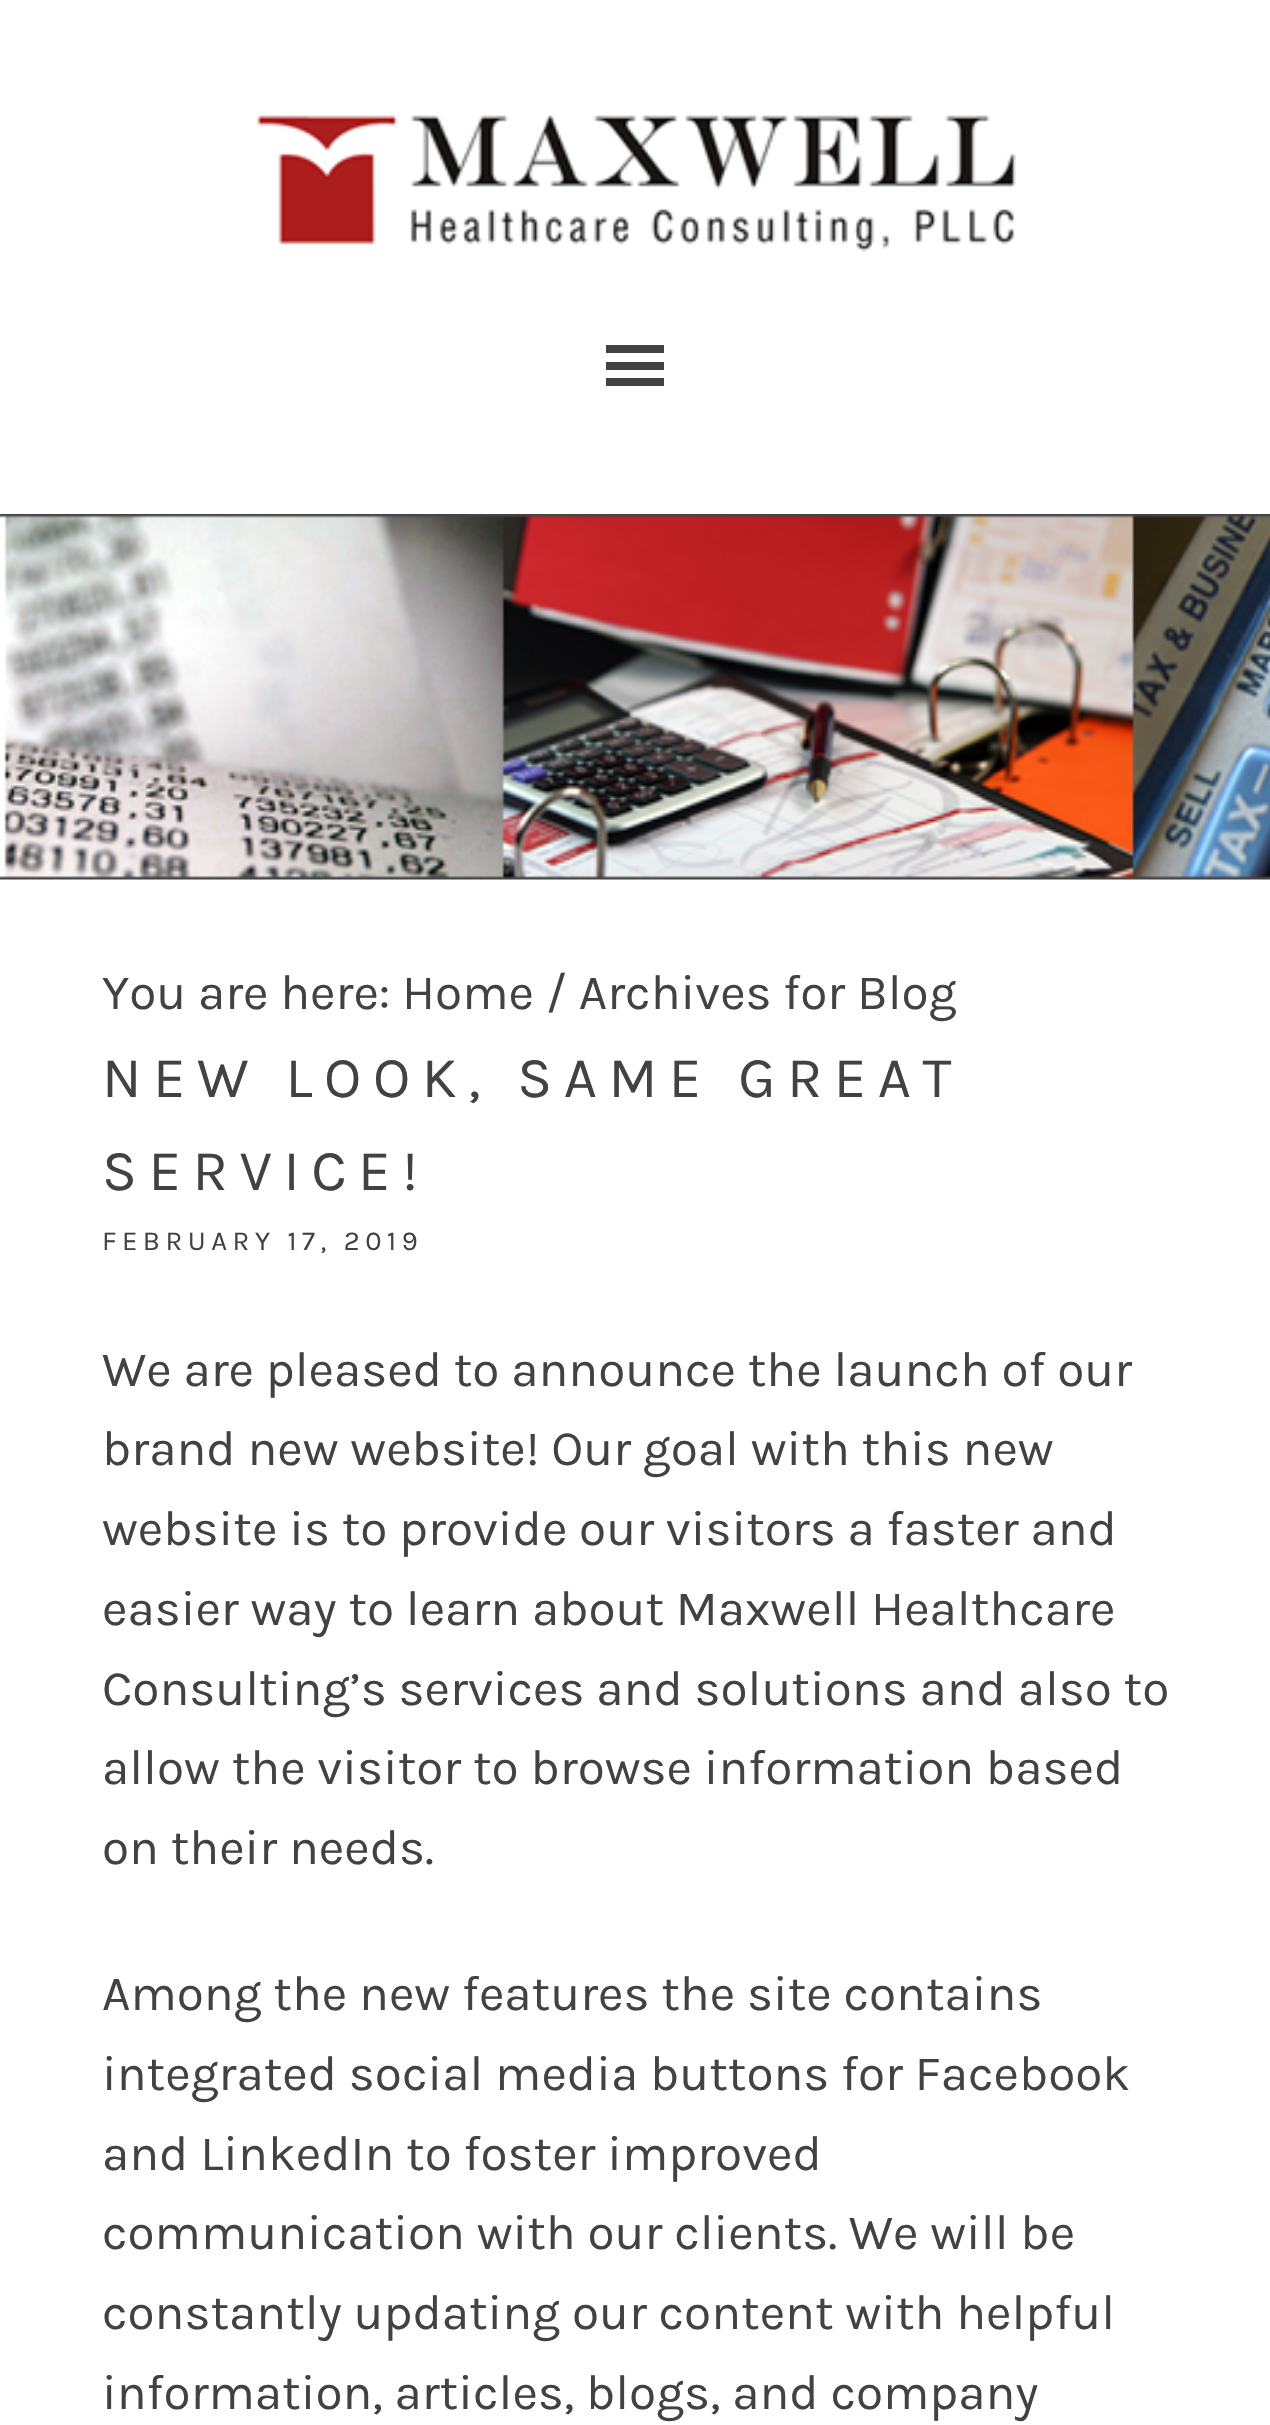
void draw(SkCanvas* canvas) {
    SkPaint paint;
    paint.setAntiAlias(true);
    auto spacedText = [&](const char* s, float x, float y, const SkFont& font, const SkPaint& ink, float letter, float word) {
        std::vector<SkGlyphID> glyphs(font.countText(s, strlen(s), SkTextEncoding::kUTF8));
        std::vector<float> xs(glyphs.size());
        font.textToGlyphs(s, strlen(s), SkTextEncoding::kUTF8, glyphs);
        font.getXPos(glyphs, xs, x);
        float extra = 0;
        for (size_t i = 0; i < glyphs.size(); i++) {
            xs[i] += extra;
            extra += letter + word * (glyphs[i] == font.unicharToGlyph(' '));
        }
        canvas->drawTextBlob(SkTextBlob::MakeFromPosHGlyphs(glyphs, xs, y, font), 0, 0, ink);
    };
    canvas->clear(0xFFFFFFFF);
    canvas->drawImageRect(SkImages::DeferredFromEncodedData(SkData::MakeFromFileName("img1.png")), SkRect::MakeXYWH(256, 115, 760, 137), SkSamplingOptions());
    paint.setColor(0xFF424243);
    canvas->drawPath(SkPathBuilder().moveTo(606, 386).lineTo(664, 386).lineTo(664, 378).lineTo(606, 378).close().moveTo(606, 345).lineTo(606, 353).lineTo(664, 353).lineTo(664, 345).close().moveTo(606, 370).lineTo(664, 370).lineTo(664, 362).lineTo(606, 362).close().detach(), paint);
    canvas->drawImageRect(SkImages::DeferredFromEncodedData(SkData::MakeFromFileName("img2.png")), SkRect::MakeXYWH(0, 514, 1270, 366), SkSamplingOptions());
    SkFont font1(fontMgr->matchFamilyStyle("Karla", SkFontStyle::Normal()), 49.5f);
    font1.setSubpixel(true);
    canvas->drawString("You are here: Home / Archives for Blog", 102, 1009, font1, paint);
    SkFont font2(fontMgr->matchFamilyStyle("Karla", SkFontStyle::Normal()), 57.75f);
    font2.setSubpixel(true);
    spacedText("NEW LOOK, SAME GREAT", 102, 1097, font2, paint, 11.55f, 0);
    spacedText("SERVICE!", 102, 1190, font2, paint, 11.55f, 0);
    SkFont font3(fontMgr->matchFamilyStyle("Karla", SkFontStyle::Normal()), 27.5f);
    font3.setSubpixel(true);
    spacedText("FEBRUARY 17, 2019", 102, 1250, font3, paint, 5.5f, 0);
    canvas->drawString("We are pleased to announce the launch of our", 102, 1386, font1, paint);
    canvas->drawString("brand new website! Our goal with this new", 102, 1465, font1, paint);
    canvas->drawString("website is to provide our visitors a faster and", 102, 1545, font1, paint);
    canvas->drawString("easier way to learn about Maxwell Healthcare", 102, 1625, font1, paint);
    canvas->drawString("Consulting’s services and solutions and also to", 102, 1705, font1, paint);
    canvas->drawString("allow the visitor to browse information based", 102, 1784, font1, paint);
    canvas->drawString("on their needs.", 102, 1864, font1, paint);
    canvas->drawString("Among the new features the site contains", 102, 2010, font1, paint);
    canvas->drawString("integrated social media buttons for Facebook", 102, 2090, font1, paint);
    canvas->drawString("and LinkedIn to foster improved", 102, 2170, font1, paint);
    canvas->drawString("communication with our clients. We will be", 102, 2249, font1, paint);
    canvas->drawString("constantly updating our content with helpful", 102, 2329, font1, paint);
    canvas->drawString("information, articles, blogs, and company", 102, 2409, font1, paint);
}
